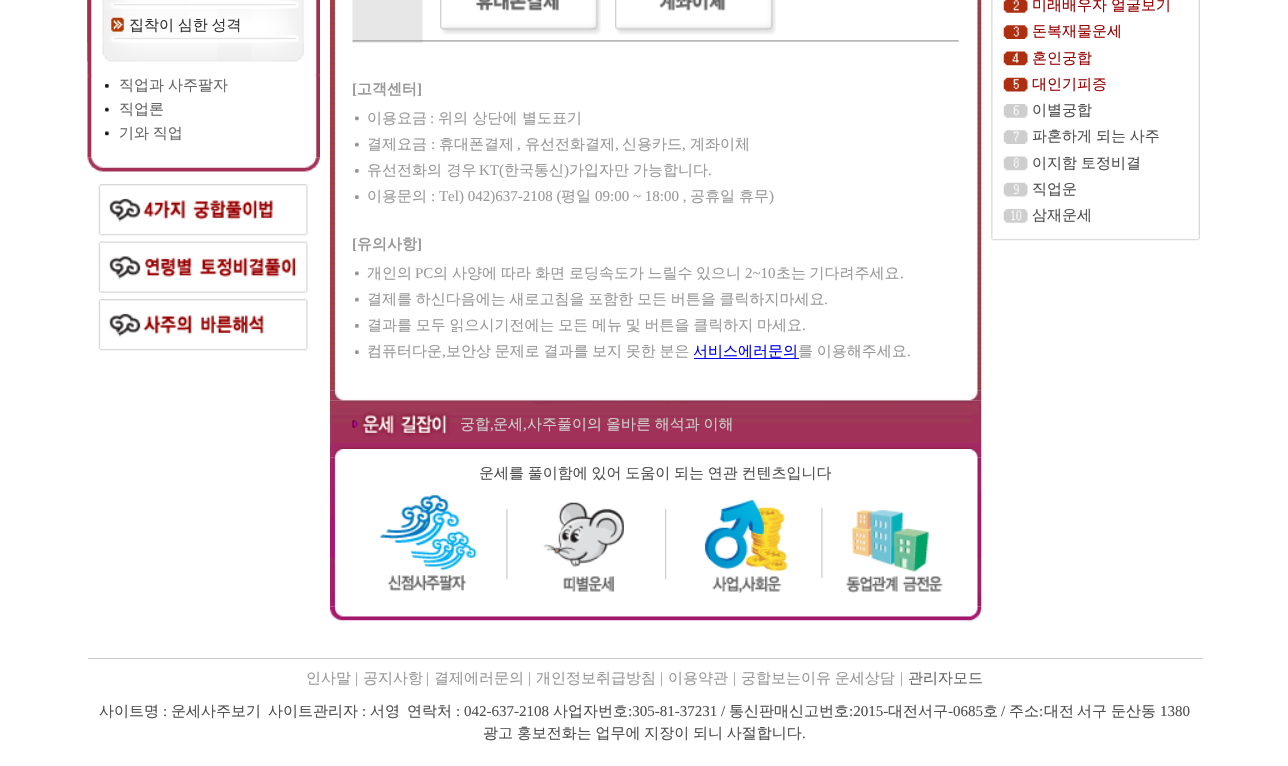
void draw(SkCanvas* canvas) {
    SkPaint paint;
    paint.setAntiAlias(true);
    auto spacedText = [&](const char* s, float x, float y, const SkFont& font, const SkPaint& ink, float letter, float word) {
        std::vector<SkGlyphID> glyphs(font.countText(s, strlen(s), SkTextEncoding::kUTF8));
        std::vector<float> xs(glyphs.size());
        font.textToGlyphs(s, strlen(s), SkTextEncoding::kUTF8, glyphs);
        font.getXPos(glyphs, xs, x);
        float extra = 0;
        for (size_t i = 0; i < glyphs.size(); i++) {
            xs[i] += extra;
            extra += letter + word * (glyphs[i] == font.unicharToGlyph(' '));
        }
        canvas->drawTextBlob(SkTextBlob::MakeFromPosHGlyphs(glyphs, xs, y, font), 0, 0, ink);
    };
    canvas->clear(0xFFFFFFFF);
    canvas->drawImageRect(SkImages::DeferredFromEncodedData(SkData::MakeFromFileName("img1.png")), SkRect::MakeXYWH(87, 0, 233, 158), SkSamplingOptions());
    canvas->drawImageRect(SkImages::DeferredFromEncodedData(SkData::MakeFromFileName("img2.png")), SkRect::MakeXYWH(87, 0, 217, 43), SkSamplingOptions());
    canvas->drawImageRect(SkImages::DeferredFromEncodedData(SkData::MakeFromFileName("img3.png")), SkRect::MakeXYWH(87, 0, 212, 9), SkSamplingOptions());
    canvas->drawImageRect(SkImages::DeferredFromEncodedData(SkData::MakeFromFileName("img4.png")), SkRect::MakeXYWH(87, 9, 212, 34), SkSamplingOptions());
    SkFont font1(fontMgr->matchFamilyStyle("WenQuanYi Zen Hei", SkFontStyle(500, SkFontStyle::kNormal_Width, SkFontStyle::kUpright_Slant)), 15);
    font1.setSubpixel(true);
    paint.setColor(0xFF333333);
    spacedText("집착이 심한 성격", 129, 30, font1, paint, 0, -0.75f);
    canvas->drawImageRect(SkImages::DeferredFromEncodedData(SkData::MakeFromFileName("img5.png")), SkRect::MakeXYWH(87, 42, 217, 20), SkSamplingOptions());
    canvas->drawImageRect(SkImages::DeferredFromEncodedData(SkData::MakeFromFileName("img6.png")), SkRect::MakeXYWH(105, 84, 4, 4), SkSamplingOptions());
    paint.setColor(0xFF666666);
    canvas->drawString("직업과", 119, 90, font1, paint);
    canvas->drawString("사주팔자", 168, 90, font1, paint);
    canvas->drawImageRect(SkImages::DeferredFromEncodedData(SkData::MakeFromFileName("img7.png")), SkRect::MakeXYWH(105, 107, 4, 5), SkSamplingOptions());
    canvas->drawString("직업론", 119, 114, font1, paint);
    canvas->drawImageRect(SkImages::DeferredFromEncodedData(SkData::MakeFromFileName("img8.png")), SkRect::MakeXYWH(105, 131, 4, 5), SkSamplingOptions());
    spacedText("기와 직업", 119, 138, font1, paint, 0, -0.75f);
    canvas->drawImageRect(SkImages::DeferredFromEncodedData(SkData::MakeFromFileName("img9.png")), SkRect::MakeXYWH(87, 157, 233, 15), SkSamplingOptions());
    canvas->drawImageRect(SkImages::DeferredFromEncodedData(SkData::MakeFromFileName("img10.png")), SkRect::MakeXYWH(98, 184, 210, 52), SkSamplingOptions());
    canvas->drawImageRect(SkImages::DeferredFromEncodedData(SkData::MakeFromFileName("img11.png")), SkRect::MakeXYWH(98, 241, 210, 52), SkSamplingOptions());
    canvas->drawImageRect(SkImages::DeferredFromEncodedData(SkData::MakeFromFileName("img12.png")), SkRect::MakeXYWH(98, 299, 210, 52), SkSamplingOptions());
    canvas->drawImageRect(SkImages::DeferredFromEncodedData(SkData::MakeFromFileName("img13.png")), SkRect::MakeXYWH(330, 0, 652, 391), SkSamplingOptions());
    canvas->drawImageRect(SkImages::DeferredFromEncodedData(SkData::MakeFromFileName("img14.png")), SkRect::MakeXYWH(352, 0, 607, 43), SkSamplingOptions());
    canvas->drawImageRect(SkImages::DeferredFromEncodedData(SkData::MakeFromFileName("img15.png")), SkRect::MakeXYWH(440, 0, 161, 35), SkSamplingOptions());
    canvas->drawImageRect(SkImages::DeferredFromEncodedData(SkData::MakeFromFileName("img16.png")), SkRect::MakeXYWH(615, 0, 161, 35), SkSamplingOptions());
    SkFont font2(fontMgr->matchFamilyStyle("Liberation Serif", SkFontStyle::Bold()), 15);
    font2.setSubpixel(true);
    paint.setColor(0xFF999999);
    canvas->drawString("[", 352, 94, font2, paint);
    SkFont font3(fontMgr->matchFamilyStyle("WenQuanYi Zen Hei", SkFontStyle::Bold()), 15);
    font3.setSubpixel(true);
    canvas->drawString("고객센터", 357, 94, font3, paint);
    canvas->drawString("]", 417, 94, font2, paint);
    canvas->drawImageRect(SkImages::DeferredFromEncodedData(SkData::MakeFromFileName("img17.png")), SkRect::MakeXYWH(355, 116, 4, 5), SkSamplingOptions());
    canvas->drawString("이용요금", 367, 123, font1, paint);
    SkFont font4(fontMgr->matchFamilyStyle("Liberation Serif", SkFontStyle::Normal()), 15);
    font4.setSubpixel(true);
    canvas->drawString(":", 430, 123, font4, paint);
    canvas->drawString("위의 상단에 별도표기", 438, 123, font1, paint);
    canvas->drawImageRect(SkImages::DeferredFromEncodedData(SkData::MakeFromFileName("img18.png")), SkRect::MakeXYWH(355, 142, 4, 5), SkSamplingOptions());
    canvas->drawString("결제요금", 367, 149, font1, paint);
    canvas->drawString(":", 431, 149, font4, paint);
    canvas->drawString("휴대폰결제", 439, 149, font1, paint);
    canvas->drawString(",", 517, 149, font4, paint);
    canvas->drawString("유선전화결제", 525, 149, font1, paint);
    canvas->drawString(",", 615, 149, font4, paint);
    canvas->drawString("신용카드", 622, 149, font1, paint);
    canvas->drawString(",", 682, 149, font4, paint);
    canvas->drawString("계좌이체", 690, 149, font1, paint);
    canvas->drawImageRect(SkImages::DeferredFromEncodedData(SkData::MakeFromFileName("img19.png")), SkRect::MakeXYWH(355, 169, 4, 4), SkSamplingOptions());
    canvas->drawString("유선전화의 경우", 367, 175, font1, paint);
    canvas->drawString("KT(", 479, 175, font4, paint);
    canvas->drawString("한국통신", 504, 175, font1, paint);
    canvas->drawString(")", 564, 175, font4, paint);
    canvas->drawString("가입자만", 569, 175, font1, paint);
    canvas->drawString("가능합니다", 633, 175, font1, paint);
    canvas->drawString(".", 708, 175, font4, paint);
    canvas->drawImageRect(SkImages::DeferredFromEncodedData(SkData::MakeFromFileName("img20.png")), SkRect::MakeXYWH(355, 195, 4, 4), SkSamplingOptions());
    canvas->drawString("이용문의", 367, 201, font1, paint);
    canvas->drawString(": Tel) 042)637-2108 (", 431, 201, font4, paint);
    canvas->drawString("평일", 561, 201, font1, paint);
    canvas->drawString("09:00 ~ 18:00 ,", 595, 201, font4, paint);
    canvas->drawString("공휴일", 690, 201, font1, paint);
    canvas->drawString("휴무", 739, 201, font1, paint);
    canvas->drawString(")", 769, 201, font4, paint);
    canvas->drawString("[", 352, 249, font2, paint);
    canvas->drawString("유의사항", 357, 249, font3, paint);
    canvas->drawString("]", 417, 249, font2, paint);
    canvas->drawImageRect(SkImages::DeferredFromEncodedData(SkData::MakeFromFileName("img17.png")), SkRect::MakeXYWH(355, 271, 4, 5), SkSamplingOptions());
    canvas->drawString("개인의", 367, 278, font1, paint);
    canvas->drawString("PC", 415, 278, font4, paint);
    spacedText("의 사양에 따라 화면", 433, 278, font1, paint, 0, -0.5f);
    spacedText("로딩속도가 느릴수 있으니", 569, 278, font1, paint, 0, -1);
    canvas->drawString("2~10", 745, 278, font4, paint);
    spacedText("초는 기다려주세요", 776, 278, font1, paint, 0, -1);
    canvas->drawString(".", 900, 278, font4, paint);
    canvas->drawImageRect(SkImages::DeferredFromEncodedData(SkData::MakeFromFileName("img18.png")), SkRect::MakeXYWH(355, 297, 4, 5), SkSamplingOptions());
    spacedText("결제를 하신다음에는 새로고침을 포함한", 367, 304, font1, paint, 0, -0.75f);
    spacedText("모든 버튼을 클릭하지마세요", 637, 304, font1, paint, 0, -0.75f);
    canvas->drawString(".", 824, 304, font4, paint);
    canvas->drawImageRect(SkImages::DeferredFromEncodedData(SkData::MakeFromFileName("img19.png")), SkRect::MakeXYWH(355, 324, 4, 4), SkSamplingOptions());
    spacedText("결과를 모두 읽으시기전에는 모든", 367, 330, font1, paint, 0, -0.75f);
    spacedText("메뉴 및 버튼을 클릭하지 마세요", 592, 330, font1, paint, 0, -0.75f);
    canvas->drawString(".", 802, 330, font4, paint);
    canvas->drawImageRect(SkImages::DeferredFromEncodedData(SkData::MakeFromFileName("img20.png")), SkRect::MakeXYWH(355, 350, 4, 4), SkSamplingOptions());
    canvas->drawString("컴퓨터다운", 367, 356, font1, paint);
    canvas->drawString(",", 442, 356, font4, paint);
    spacedText("보안상 문제로 결과를", 446, 356, font1, paint, 0, -0.75f);
    spacedText("보지 못한 분은", 592, 356, font1, paint, 0, -0.75f);
    paint.setColor(0xFF0000EE);
    canvas->drawRect(SkRect::MakeXYWH(694, 358, 105, 1), paint);
    canvas->drawString("서비스에러문의", 693, 356, font1, paint);
    paint.setColor(0xFF999999);
    spacedText("를 이용해주세요", 798, 356, font1, paint, 0, -0.75f);
    canvas->drawString(".", 907, 356, font4, paint);
    canvas->drawImageRect(SkImages::DeferredFromEncodedData(SkData::MakeFromFileName("img22.png")), SkRect::MakeXYWH(330, 400, 652, 49), SkSamplingOptions());
    canvas->drawImageRect(SkImages::DeferredFromEncodedData(SkData::MakeFromFileName("img21.png")), SkRect::MakeXYWH(330, 390, 652, 11), SkSamplingOptions());
    paint.setColor(0xFFCCCCCC);
    canvas->drawString("궁합", 460, 429, font1, paint);
    canvas->drawString(",", 490, 429, font4, paint);
    canvas->drawString("운세", 493, 429, font1, paint);
    canvas->drawString(",", 523, 429, font4, paint);
    canvas->drawString("사주풀이의", 527, 429, font1, paint);
    spacedText("올바른 해석과 이해", 606, 429, font1, paint, 0, -0.75f);
    canvas->drawImageRect(SkImages::DeferredFromEncodedData(SkData::MakeFromFileName("img24.png")), SkRect::MakeXYWH(330, 457, 652, 150), SkSamplingOptions());
    canvas->drawImageRect(SkImages::DeferredFromEncodedData(SkData::MakeFromFileName("img23.png")), SkRect::MakeXYWH(330, 449, 652, 9), SkSamplingOptions());
    paint.setColor(0xFF4F4F4F);
    spacedText("운세를 풀이함에 있어 도움이 되는 연관 컨텐츠입니다", 479, 478, font1, paint, 0, -0.75f);
    canvas->drawImageRect(SkImages::DeferredFromEncodedData(SkData::MakeFromFileName("img25.png")), SkRect::MakeXYWH(379, 495, 564, 98), SkSamplingOptions());
    canvas->drawImageRect(SkImages::DeferredFromEncodedData(SkData::MakeFromFileName("img26.png")), SkRect::MakeXYWH(330, 606, 652, 15), SkSamplingOptions());
    canvas->drawImageRect(SkImages::DeferredFromEncodedData(SkData::MakeFromFileName("img27.png")), SkRect::MakeXYWH(991, 0, 209, 236), SkSamplingOptions());
    canvas->drawImageRect(SkImages::DeferredFromEncodedData(SkData::MakeFromFileName("img28.png")), SkRect::MakeXYWH(1003, 0, 25, 13), SkSamplingOptions());
    paint.setColor(0xFF990000);
    canvas->drawString("미래배우자", 1032, 10, font1, paint);
    canvas->drawString("얼굴보기", 1111, 10, font1, paint);
    canvas->drawImageRect(SkImages::DeferredFromEncodedData(SkData::MakeFromFileName("img29.png")), SkRect::MakeXYWH(1003, 25, 25, 14), SkSamplingOptions());
    canvas->drawString("돈복재물운세", 1032, 36, font1, paint);
    canvas->drawImageRect(SkImages::DeferredFromEncodedData(SkData::MakeFromFileName("img30.png")), SkRect::MakeXYWH(1003, 51, 25, 15), SkSamplingOptions());
    canvas->drawString("혼인궁합", 1032, 63, font1, paint);
    canvas->drawImageRect(SkImages::DeferredFromEncodedData(SkData::MakeFromFileName("img31.png")), SkRect::MakeXYWH(1003, 77, 25, 15), SkSamplingOptions());
    canvas->drawString("대인기피증", 1032, 89, font1, paint);
    canvas->drawImageRect(SkImages::DeferredFromEncodedData(SkData::MakeFromFileName("img32.png")), SkRect::MakeXYWH(1003, 104, 25, 14), SkSamplingOptions());
    paint.setColor(0xFF4F4F4F);
    canvas->drawString("이별궁합", 1032, 115, font1, paint);
    canvas->drawImageRect(SkImages::DeferredFromEncodedData(SkData::MakeFromFileName("img33.png")), SkRect::MakeXYWH(1003, 130, 25, 14), SkSamplingOptions());
    canvas->drawString("파혼하게", 1032, 141, font1, paint);
    spacedText("되는 사주", 1096, 141, font1, paint, 0, -0.75f);
    canvas->drawImageRect(SkImages::DeferredFromEncodedData(SkData::MakeFromFileName("img34.png")), SkRect::MakeXYWH(1003, 156, 25, 15), SkSamplingOptions());
    canvas->drawString("이지함", 1032, 168, font1, paint);
    canvas->drawString("토정비결", 1081, 168, font1, paint);
    canvas->drawImageRect(SkImages::DeferredFromEncodedData(SkData::MakeFromFileName("img35.png")), SkRect::MakeXYWH(1003, 182, 25, 15), SkSamplingOptions());
    canvas->drawString("직업운", 1032, 194, font1, paint);
    canvas->drawImageRect(SkImages::DeferredFromEncodedData(SkData::MakeFromFileName("img36.png")), SkRect::MakeXYWH(1003, 209, 25, 14), SkSamplingOptions());
    canvas->drawString("삼재운세", 1032, 220, font1, paint);
    canvas->drawImageRect(SkImages::DeferredFromEncodedData(SkData::MakeFromFileName("img37.png")), SkRect::MakeXYWH(991, 235, 209, 6), SkSamplingOptions());
    paint.setColor(0xFFCCCCCC);
    canvas->drawRect(SkRect::MakeXYWH(88, 658, 1115, 1), paint);
    paint.setColor(0xFF999999);
    canvas->drawString("인사말", 306, 683, font1, paint);
    canvas->drawString("|", 355, 683, font4, paint);
    canvas->drawString("공지사항", 363, 683, font1, paint);
    canvas->drawString("|", 426, 683, font4, paint);
    canvas->drawString("결제에러문의", 434, 683, font1, paint);
    canvas->drawString("|", 528, 683, font4, paint);
    canvas->drawString("개인정보취급방침", 536, 683, font1, paint);
    canvas->drawString("|", 660, 683, font4, paint);
    canvas->drawString("이용약관", 668, 683, font1, paint);
    canvas->drawString("|", 733, 683, font4, paint);
    spacedText("궁합보는이유 운세상담", 741, 683, font1, paint, 0, -0.75f);
    canvas->drawString("|", 900, 683, font4, paint);
    paint.setColor(0xFF666666);
    canvas->drawString("관리자모드", 908, 683, font1, paint);
    paint.setColor(0xFF4F4F4F);
    canvas->drawString("사이트명", 99, 716, font1, paint);
    canvas->drawString(":", 163, 716, font4, paint);
    canvas->drawString("운세사주보기", 171, 716, font1, paint);
    canvas->drawString("사이트관리자", 268, 716, font1, paint);
    canvas->drawString(":", 362, 716, font4, paint);
    canvas->drawString("서영", 370, 716, font1, paint);
    canvas->drawString("연락처", 407, 716, font1, paint);
    canvas->drawString(": 042-637-2108", 456, 716, font4, paint);
    canvas->drawString("사업자번호", 553, 716, font1, paint);
    canvas->drawString(":305-81-37231 /", 628, 716, font4, paint);
    canvas->drawString("통신판매신고번호", 729, 716, font1, paint);
    canvas->drawString(":2015-", 849, 716, font4, paint);
    canvas->drawString("대전서구", 888, 716, font1, paint);
    canvas->drawString("-0685", 948, 716, font4, paint);
    canvas->drawString("호", 983, 716, font1, paint);
    canvas->drawString("/", 1001, 716, font4, paint);
    canvas->drawString("주소", 1009, 716, font1, paint);
    canvas->drawString(":", 1039, 716, font4, paint);
    canvas->drawString("대전", 1044, 716, font1, paint);
    canvas->drawString("서구", 1077, 716, font1, paint);
    canvas->drawString("둔산동", 1111, 716, font1, paint);
    canvas->drawString("1380", 1160, 716, font4, paint);
    spacedText("광고 홍보전화는 업무에 지장이 되니 사절합니다", 483, 738, font1, paint, 0, -0.75f);
    canvas->drawString(".", 802, 738, font4, paint);
}
